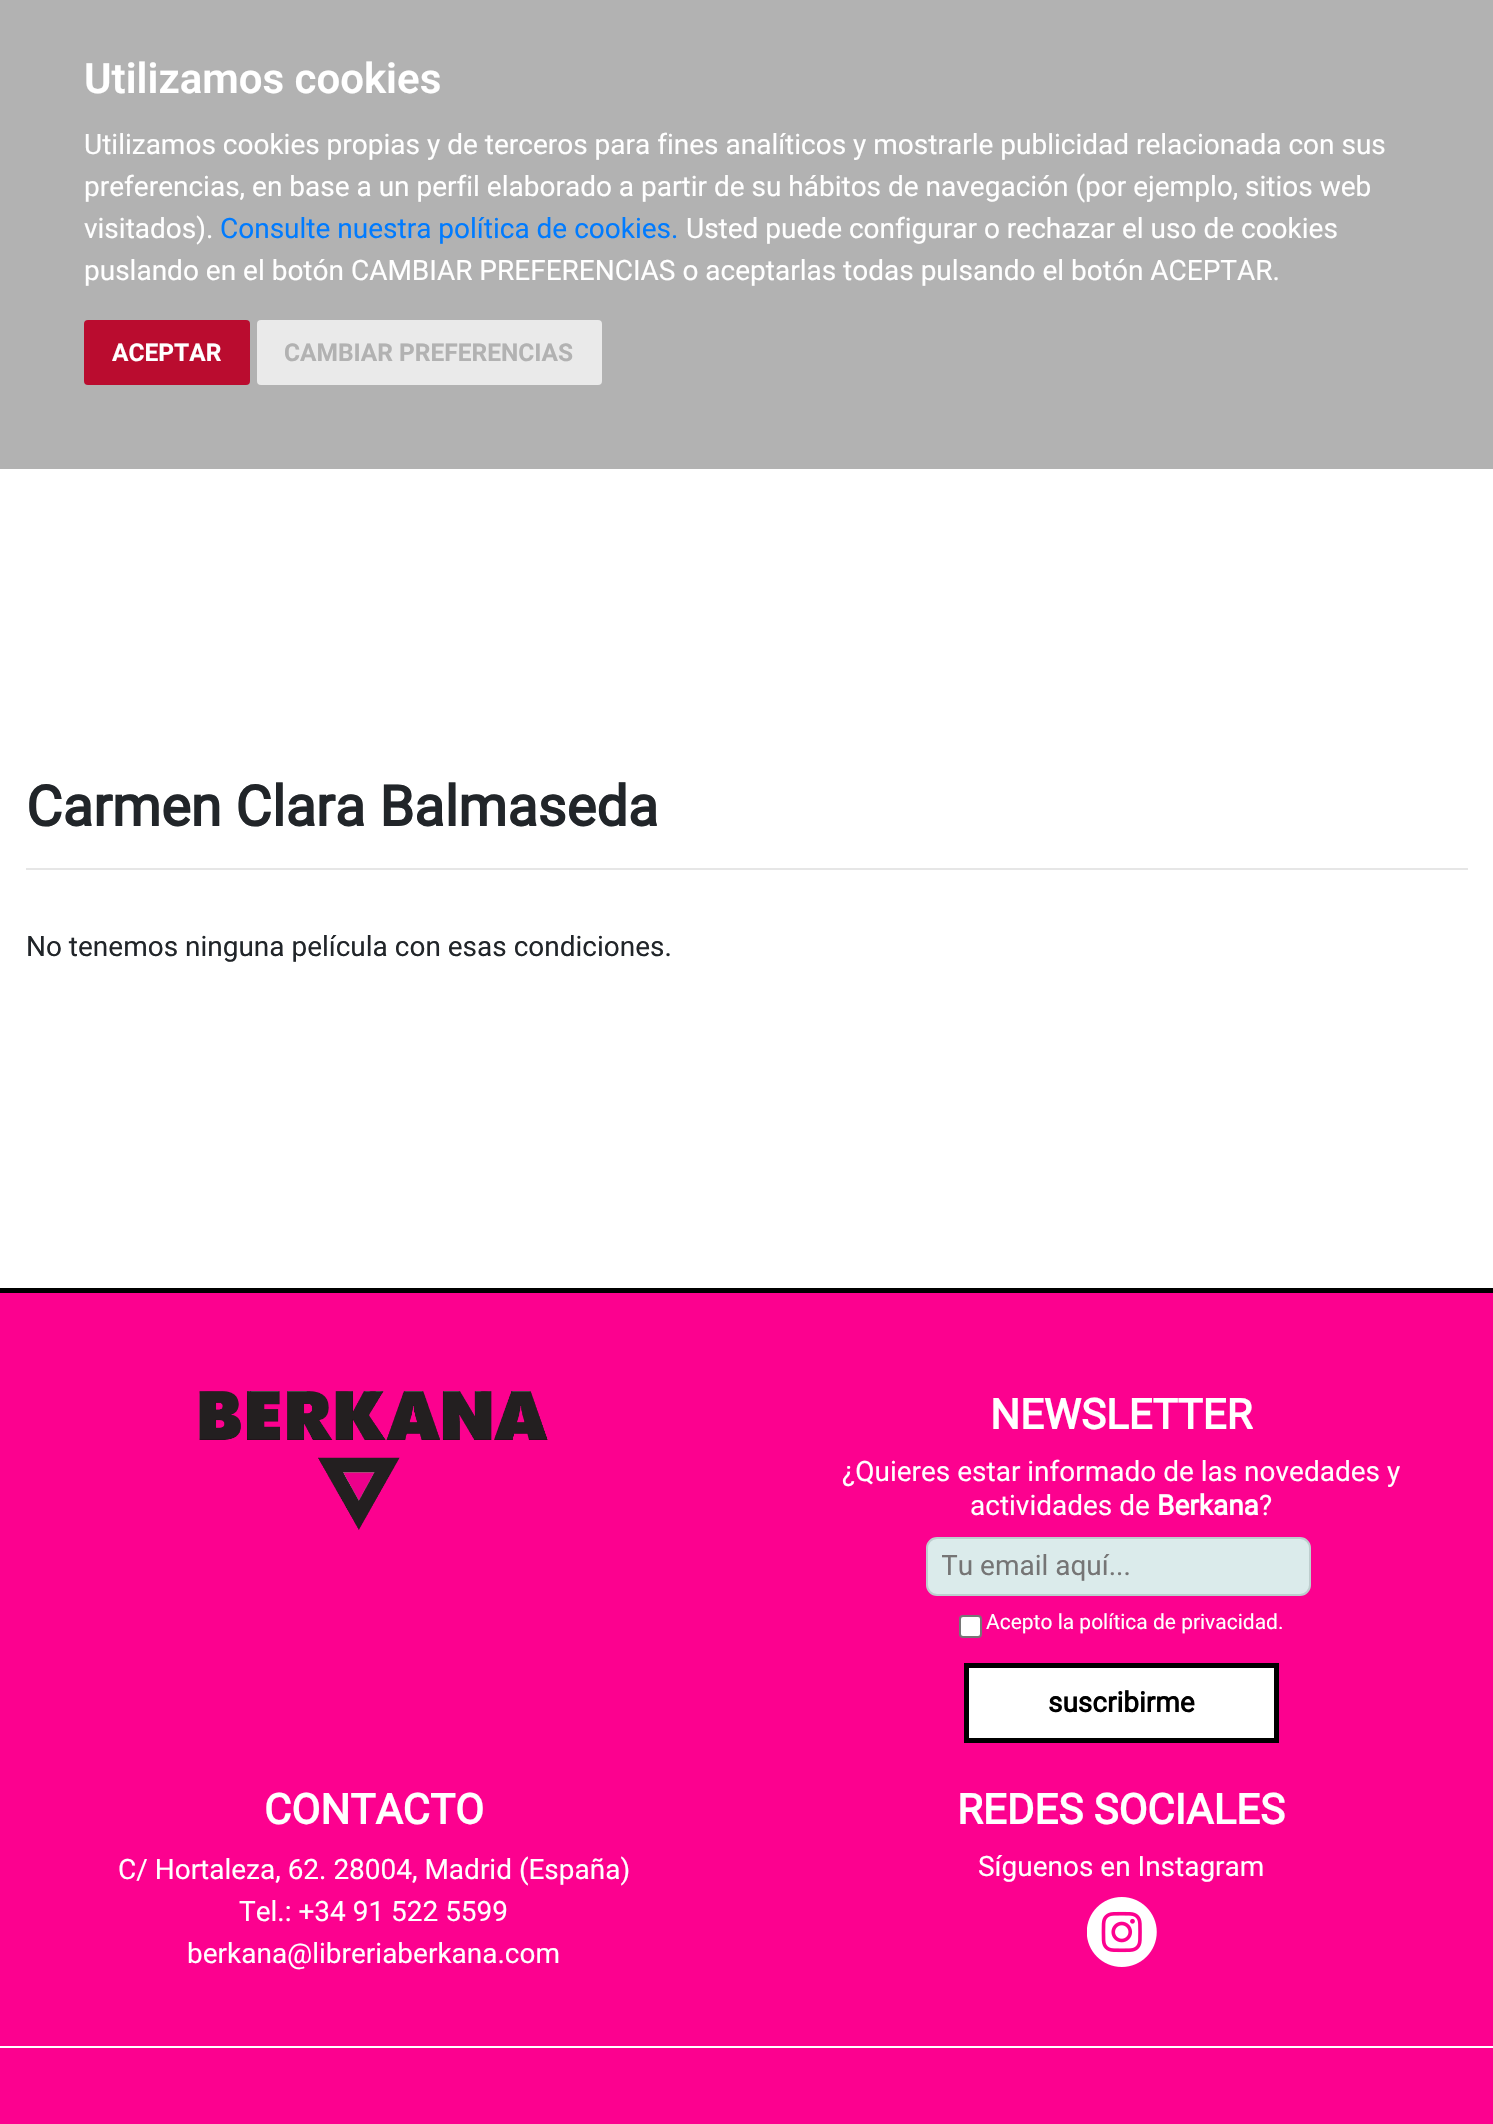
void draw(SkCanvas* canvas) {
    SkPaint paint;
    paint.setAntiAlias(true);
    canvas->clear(0xFFFFFFFF);
    paint.setColor(0xFFB2B2B2);
    canvas->drawRect(SkRect::MakeXYWH(0, 0, 1493, 469), paint);
    SkFont font1(fontMgr->matchFamilyStyle("Roboto", SkFontStyle(600, SkFontStyle::kNormal_Width, SkFontStyle::kUpright_Slant)), 42);
    font1.setSubpixel(true);
    paint.setColor(0xFFFFFFFF);
    canvas->drawString("Utilizamos cookies", 84, 93, font1, paint);
    SkFont font2(fontMgr->matchFamilyStyle("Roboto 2", SkFontStyle::Normal()), 28);
    font2.setSubpixel(true);
    canvas->drawString("Utilizamos cookies propias y de terceros para fines analíticos y mostrarle publicidad relacionada con sus", 84, 154, font2, paint);
    canvas->drawString("preferencias, en base a un perfil elaborado a partir de su hábitos de navegación (por ejemplo, sitios web", 84, 196, font2, paint);
    canvas->drawString("visitados).", 84, 238, font2, paint);
    paint.setColor(0xFF007BFF);
    canvas->drawString("Consulte nuestra política de cookies.", 220, 238, font2, paint);
    paint.setColor(0xFFFFFFFF);
    canvas->drawString("Usted puede configurar o rechazar el uso de cookies", 686, 238, font2, paint);
    canvas->drawString("puslando en el botón CAMBIAR PREFERENCIAS o aceptarlas todas pulsando el botón ACEPTAR.", 84, 280, font2, paint);
    paint.setColor(0xFFBA0C2F);
    canvas->drawRoundRect(SkRect::MakeXYWH(84, 320, 166, 65), 4, 4, paint);
    SkFont font3(fontMgr->matchFamilyStyle("Roboto 2", SkFontStyle::Bold()), 24.5f);
    font3.setSubpixel(true);
    paint.setColor(0xFFFFFFFF);
    canvas->drawString("ACEPTAR", 112, 361, font3, paint);
    paint.setColor(0xFFEAEAEA);
    canvas->drawRoundRect(SkRect::MakeXYWH(257, 320, 345, 65), 4, 4, paint);
    paint.setColor(0xFFB2B2B2);
    canvas->drawString("CAMBIAR PREFERENCIAS", 284, 361, font3, paint);
    SkFont font4(fontMgr->matchFamilyStyle("Roboto", SkFontStyle::Bold()), 56);
    font4.setSubpixel(true);
    paint.setColor(0xFF212529);
    canvas->drawString("Carmen Clara Balmaseda", 26, 826, font4, paint);
    paint.setColor(0xFFE6E6E6);
    canvas->drawRect(SkRect::MakeXYWH(26, 868, 1442, 2), paint);
    SkFont font5(fontMgr->matchFamilyStyle("Roboto", SkFontStyle::Normal()), 28);
    font5.setSubpixel(true);
    paint.setColor(0xFF212529);
    canvas->drawString("No tenemos ninguna película con esas condiciones.", 26, 956, font5, paint);
    paint.setColor(0xFFFC018F);
    canvas->drawRect(SkRect::MakeXYWH(0, 1293, 1493, 831), paint);
    paint.setColor(0xFF000000);
    canvas->drawRect(SkRect::MakeXYWH(0, 1288, 1493, 5), paint);
    paint.setColor(0xFFFFFFFF);
    canvas->drawRect(SkRect::MakeXYWH(0, 2046, 1493, 2), paint);
    canvas->drawImageRect(SkImages::DeferredFromEncodedData(SkData::MakeFromFileName("img1.png")), SkRect::MakeXYWH(199, 1391, 349, 139), SkSamplingOptions());
    SkFont font6(fontMgr->matchFamilyStyle("Roboto", SkFontStyle::Bold()), 42);
    font6.setSubpixel(true);
    canvas->drawString("NEWSLETTER", 990, 1429, font6, paint);
    canvas->drawString("¿Quieres estar informado de las novedades y", 842, 1481, font5, paint);
    canvas->drawString("actividades de", 970, 1515, font5, paint);
    SkFont font7(fontMgr->matchFamilyStyle("Roboto", SkFontStyle::Bold()), 28);
    font7.setSubpixel(true);
    canvas->drawString("Berkana", 1157, 1515, font7, paint);
    canvas->drawString("?", 1259, 1515, font5, paint);
    paint.setColor(0xFFDBEBEB);
    canvas->drawRoundRect(SkRect::MakeXYWH(927, 1538, 383, 57), 10, 10, paint);
    paint.setStyle(SkPaint::kStroke_Style);
    paint.setStrokeWidth(2);
    paint.setColor(0xFFBDCECE);
    canvas->drawRoundRect(SkRect::MakeXYWH(927, 1538, 383, 57), 10, 10, paint);
    canvas->save();
    canvas->clipRect(SkRect::MakeXYWH(942, 1549, 353, 33));
    paint.setStyle(SkPaint::kFill_Style);
    paint.setColor(0xFF757575);
    canvas->drawString("Tu email aquí...", 941, 1575, font5, paint);
    canvas->restore();
    paint.setColor(0xFFFFFFFF);
    canvas->drawRoundRect(SkRect::MakeXYWH(960, 1616, 21, 21), 3, 3, paint);
    paint.setStyle(SkPaint::kStroke_Style);
    paint.setColor(0xFF767676);
    canvas->drawRoundRect(SkRect::MakeXYWH(960, 1616, 21, 21), 3, 3, paint);
    SkFont font8(fontMgr->matchFamilyStyle("Roboto", SkFontStyle::Normal()), 21);
    font8.setSubpixel(true);
    paint.setStyle(SkPaint::kFill_Style);
    paint.setColor(0xFFFFFFFF);
    canvas->drawString("Acepto la política de privacidad.", 986, 1629, font8, paint);
    canvas->drawRect(SkRect::MakeXYWH(966.5f, 1665.5f, 310, 75), paint);
    paint.setStyle(SkPaint::kStroke_Style);
    paint.setStrokeWidth(5);
    paint.setColor(0xFF000000);
    canvas->drawRect(SkRect::MakeXYWH(966.5f, 1665.5f, 310, 75), paint);
    paint.setStyle(SkPaint::kFill_Style);
    canvas->drawString("suscribirme", 1048, 1712, font7, paint);
    paint.setColor(0xFFFFFFFF);
    canvas->drawString("CONTACTO", 264, 1824, font6, paint);
    canvas->drawString("C/ Hortaleza, 62. 28004, Madrid (España)", 118, 1879, font5, paint);
    canvas->drawString("Tel.: +34 91 522 5599", 239, 1921, font5, paint);
    canvas->drawString("berkana@libreriaberkana.com", 187, 1963, font5, paint);
    canvas->drawString("REDES SOCIALES", 957, 1824, font6, paint);
    canvas->drawString("Síguenos en Instagram", 978, 1876, font5, paint);
    canvas->drawImageRect(SkImages::DeferredFromEncodedData(SkData::MakeFromFileName("img2.png")), SkRect::MakeXYWH(1087, 1897, 70, 70), SkSamplingOptions());
}
